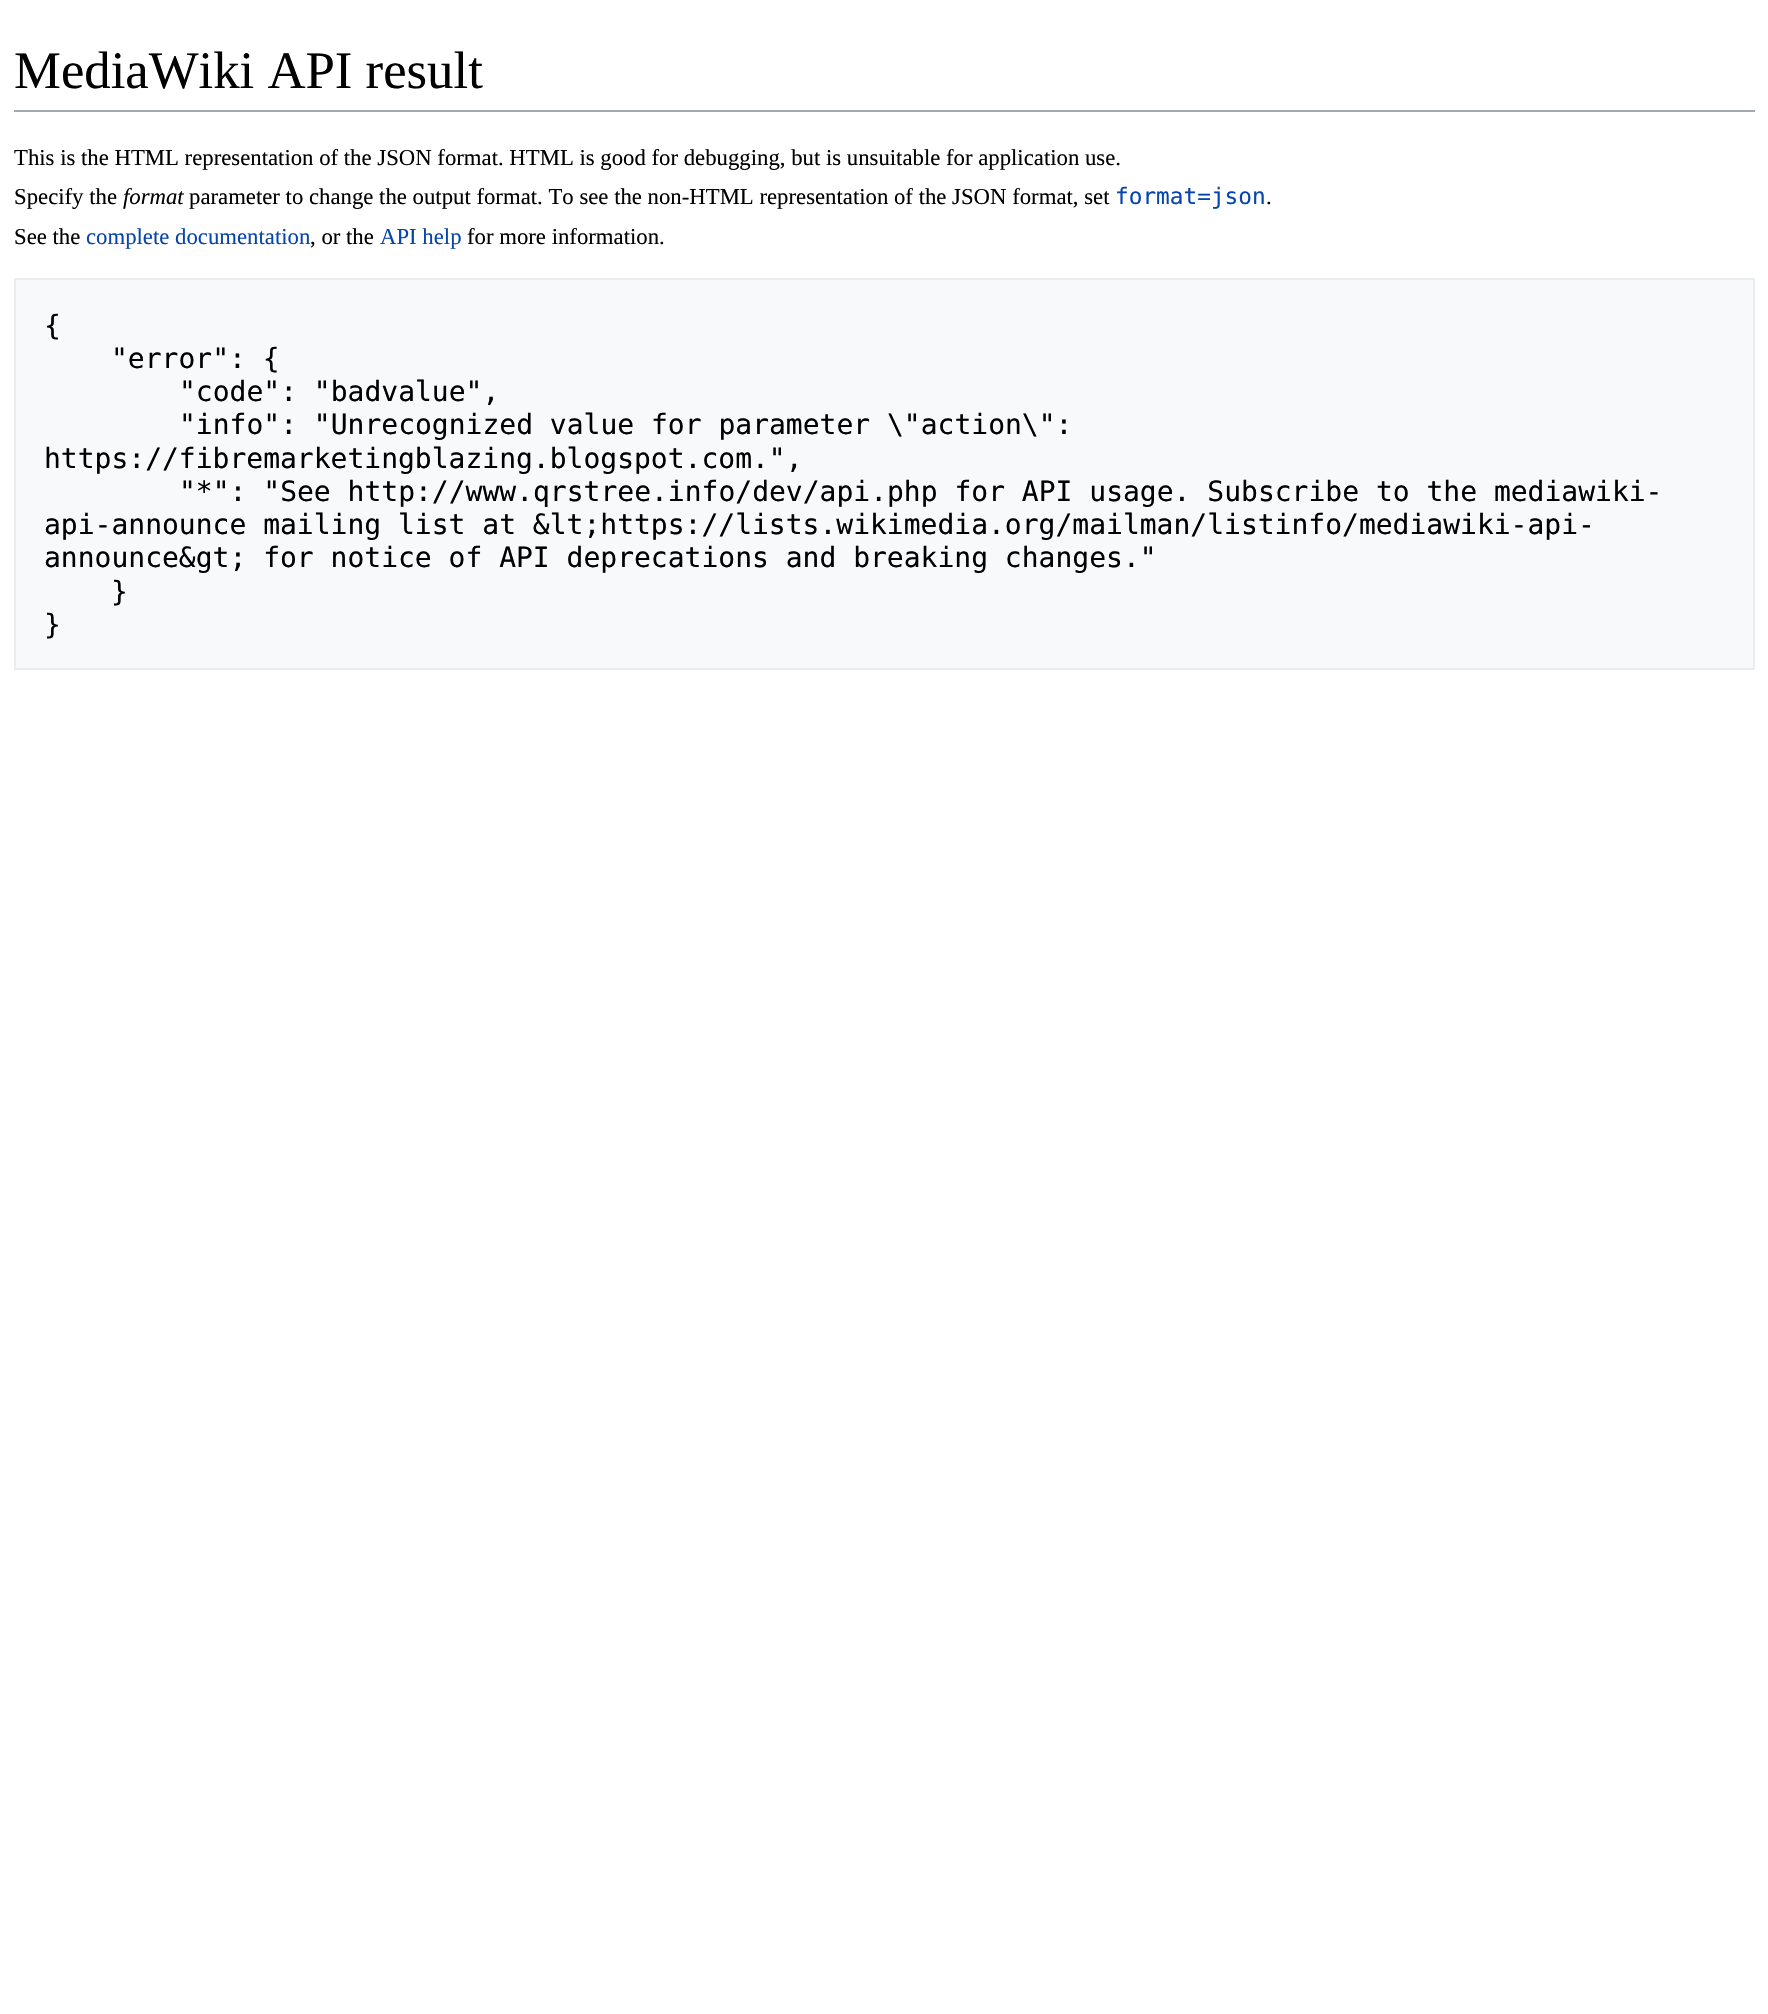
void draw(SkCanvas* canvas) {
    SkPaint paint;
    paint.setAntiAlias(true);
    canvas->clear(0xFFFFFFFF);
    paint.setColor(0xFFA2A9B1);
    canvas->drawRect(SkRect::MakeXYWH(14, 110, 1741, 2), paint);
    SkFont font1(fontMgr->matchFamilyStyle("Liberation Serif", SkFontStyle::Normal()), 52.75f);
    font1.setSubpixel(true);
    paint.setColor(0xFF000000);
    canvas->drawString("MediaWiki API result", 14, 88, font1, paint);
    SkFont font2(fontMgr->matchFamilyStyle("Liberation Serif", SkFontStyle::Normal()), 22.75f);
    font2.setSubpixel(true);
    canvas->drawString("This is the HTML representation of the JSON format. HTML is good for debugging, but is unsuitable for application use.", 14, 165, font2, paint);
    canvas->drawString("Specify the", 14, 204, font2, paint);
    SkFont font3(fontMgr->matchFamilyStyle("Liberation Serif", SkFontStyle::Italic()), 22.75f);
    font3.setSubpixel(true);
    canvas->drawString("format", 123, 204, font3, paint);
    canvas->drawString("parameter to change the output format. To see the non-HTML representation of the JSON format, set", 189, 204, font2, paint);
    SkFont font4(fontMgr->matchFamilyStyle("DejaVu Sans Mono", SkFontStyle::Normal()), 22.75f);
    font4.setSubpixel(true);
    paint.setColor(0xFF0645AD);
    canvas->drawString("format=json", 1115, 204, font4, paint);
    paint.setColor(0xFF000000);
    canvas->drawString(".", 1266, 204, font2, paint);
    canvas->drawString("See the", 14, 244, font2, paint);
    paint.setColor(0xFF0645AD);
    canvas->drawString("complete documentation", 86, 244, font2, paint);
    paint.setColor(0xFF000000);
    canvas->drawString(", or the", 310, 244, font2, paint);
    paint.setColor(0xFF0645AD);
    canvas->drawString("API help", 380, 244, font2, paint);
    paint.setColor(0xFF000000);
    canvas->drawString("for more information.", 467, 244, font2, paint);
    paint.setColor(0xFFF8F9FA);
    canvas->drawRect(SkRect::MakeXYWH(15, 279, 1739, 390), paint);
    paint.setStyle(SkPaint::kStroke_Style);
    paint.setStrokeWidth(2);
    paint.setColor(0xFFEAECF0);
    canvas->drawRect(SkRect::MakeXYWH(15, 279, 1739, 390), paint);
    SkFont font5(fontMgr->matchFamilyStyle("DejaVu Sans Mono", SkFontStyle::Normal()), 28);
    font5.setSubpixel(true);
    paint.setStyle(SkPaint::kFill_Style);
    paint.setColor(0xFF000000);
    canvas->drawString("{", 44, 335, font5, paint);
    canvas->drawString("\"error\": {", 111, 368, font5, paint);
    canvas->drawString("\"code\": \"badvalue\",", 179, 401, font5, paint);
    canvas->drawString("\"info\": \"Unrecognized value for parameter \\\"action\\\":", 179, 434, font5, paint);
    canvas->drawString("https://fibremarketingblazing.blogspot.com.\",", 44, 468, font5, paint);
    canvas->drawString("\"*\": \"See http://www.qrstree.info/dev/api.php for API usage. Subscribe to the mediawiki-", 179, 501, font5, paint);
    canvas->drawString("api-announce mailing list at &lt;https://lists.wikimedia.org/mailman/listinfo/mediawiki-api-", 44, 534, font5, paint);
    canvas->drawString("announce&gt; for notice of API deprecations and breaking changes.\"", 44, 567, font5, paint);
    canvas->drawString("}", 111, 601, font5, paint);
    canvas->drawString("}", 44, 634, font5, paint);
}
